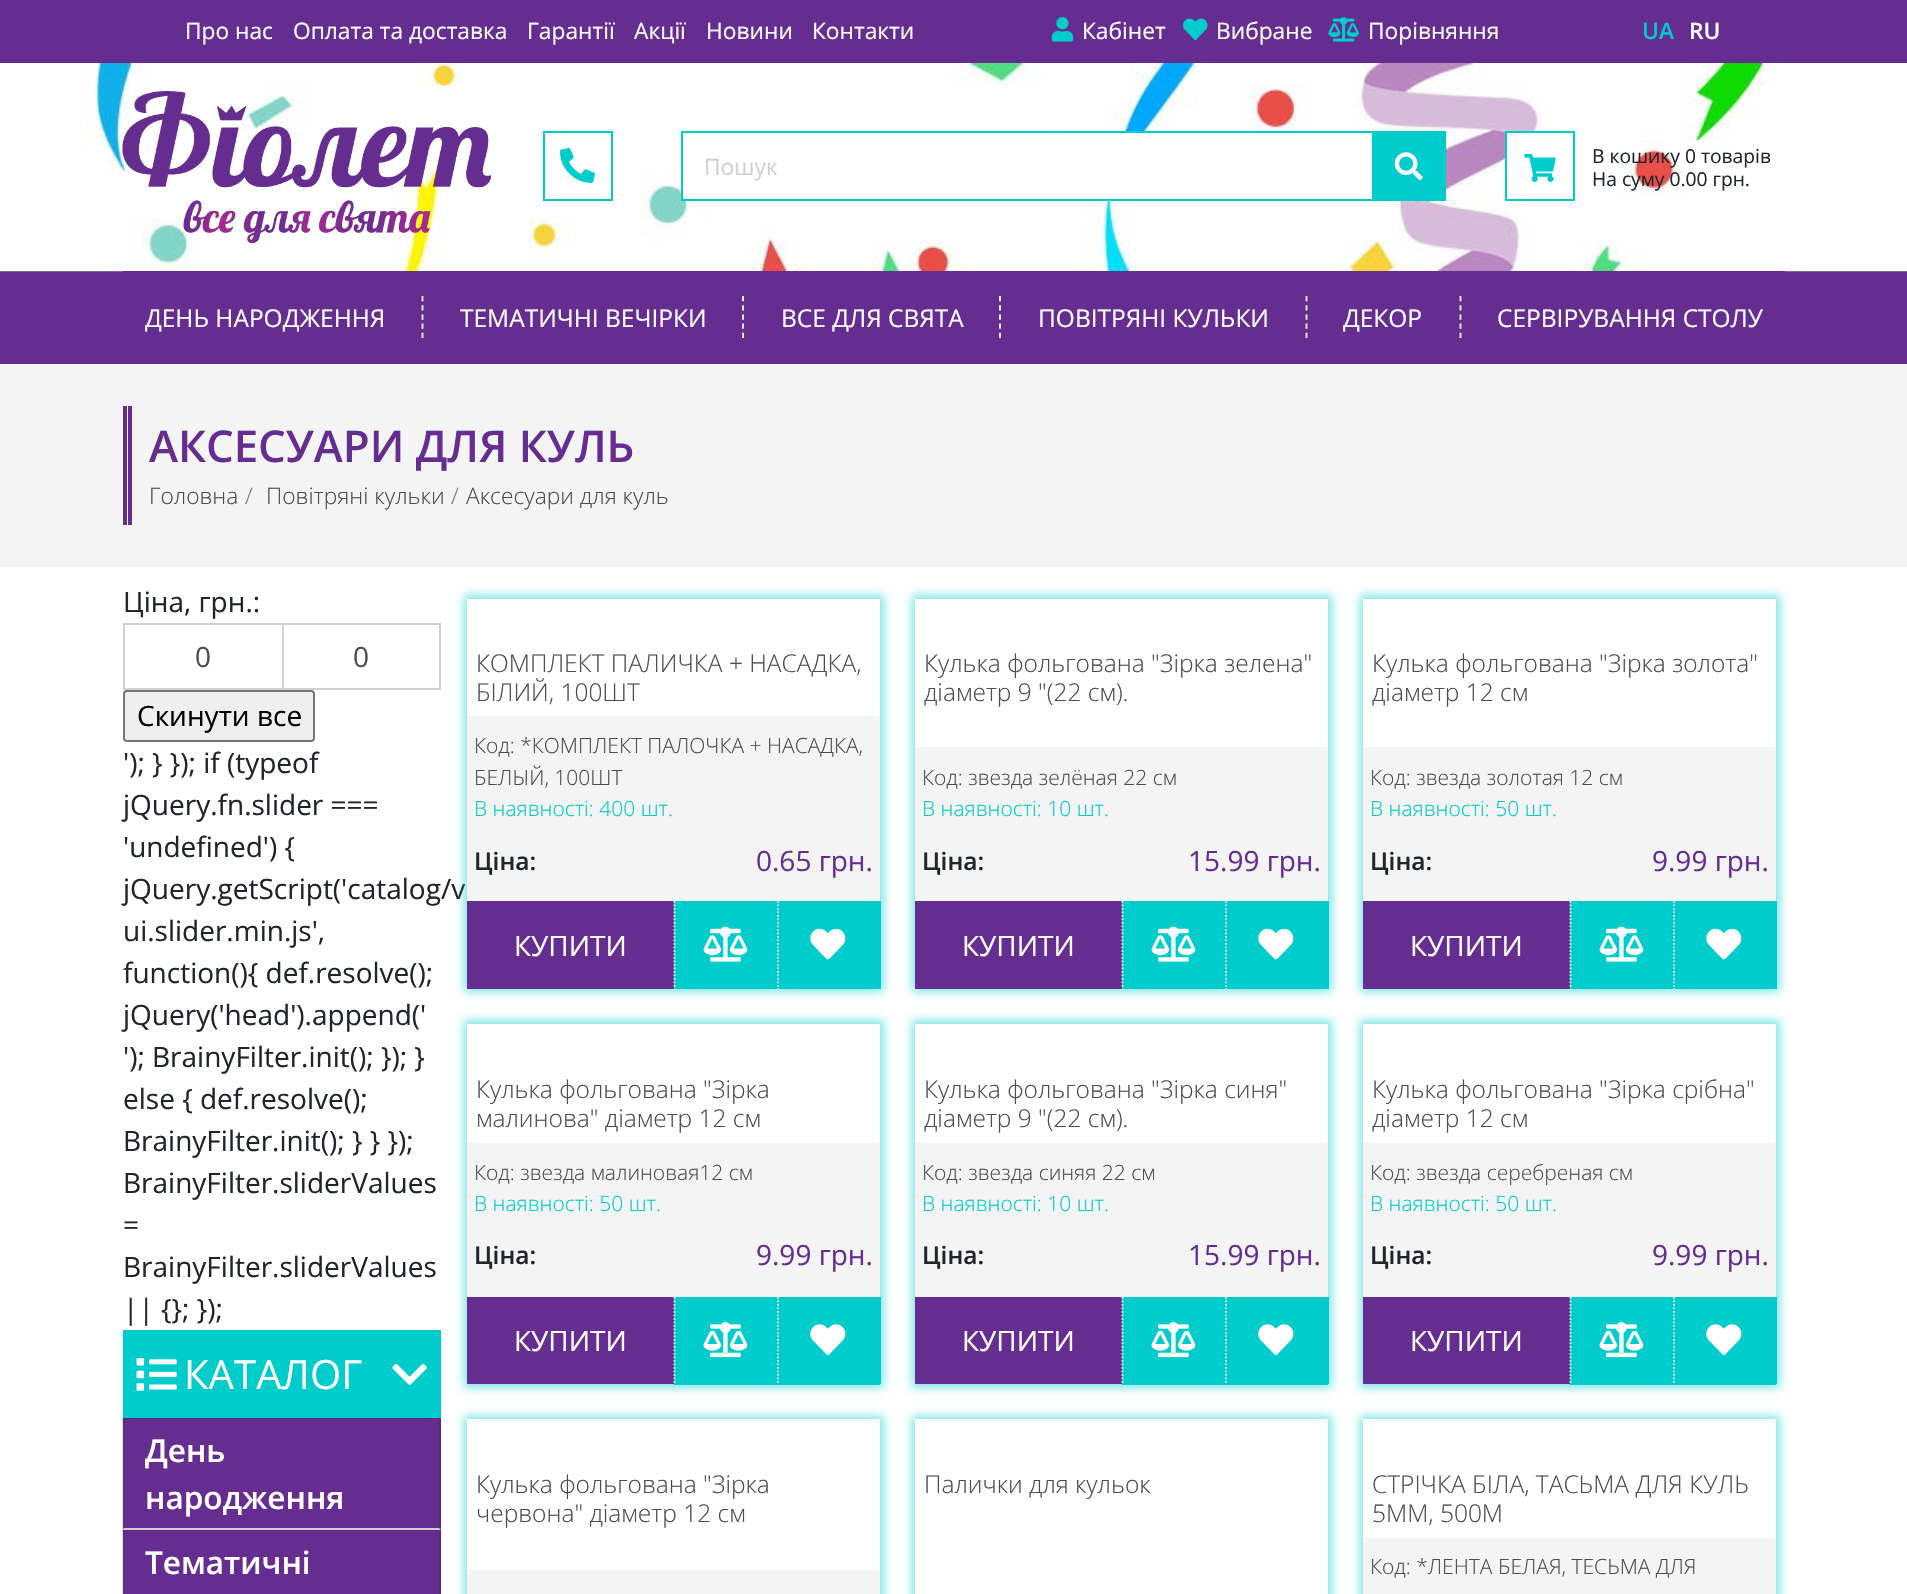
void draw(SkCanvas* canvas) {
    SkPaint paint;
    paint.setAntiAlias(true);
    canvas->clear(0xFFFFFFFF);
    paint.setColor(0xFF662D91);
    canvas->drawRect(SkRect::MakeXYWH(0, 0, 1907, 63), paint);
    SkFont font1(fontMgr->matchFamilyStyle("Open Sans", SkFontStyle::Normal()), 22.75f);
    font1.setSubpixel(true);
    paint.setColor(0xFFFFFFFF);
    canvas->drawString("Про нас", 185, 39, font1, paint);
    canvas->drawString("Оплата та доставка", 293, 39, font1, paint);
    canvas->drawString("Гарантії", 527, 39, font1, paint);
    canvas->drawString("Акції", 634, 39, font1, paint);
    canvas->drawString("Новини", 706, 39, font1, paint);
    canvas->drawString("Контакти", 812, 39, font1, paint);
    canvas->drawImageRect(SkImages::DeferredFromEncodedData(SkData::MakeFromFileName("img1.png")), SkRect::MakeXYWH(1051, 17, 23, 25), SkSamplingOptions());
    canvas->drawString("Кабінет", 1082, 39, font1, paint);
    canvas->drawImageRect(SkImages::DeferredFromEncodedData(SkData::MakeFromFileName("img2.png")), SkRect::MakeXYWH(1183, 18, 25, 22), SkSamplingOptions());
    canvas->drawString("Вибране", 1216, 39, font1, paint);
    canvas->drawImageRect(SkImages::DeferredFromEncodedData(SkData::MakeFromFileName("img3.png")), SkRect::MakeXYWH(1328, 17, 31, 25), SkSamplingOptions());
    canvas->drawString("Порівняння", 1368, 39, font1, paint);
    SkFont font2(fontMgr->matchFamilyStyle("Open Sans", SkFontStyle(600, SkFontStyle::kNormal_Width, SkFontStyle::kUpright_Slant)), 22.75f);
    font2.setSubpixel(true);
    paint.setColor(0xFF00CCCB);
    canvas->drawString("UA", 1642, 39, font2, paint);
    paint.setColor(0xFFFFFFFF);
    canvas->drawString("RU", 1689, 39, font2, paint);
    paint.setColor(0xFF662D91);
    canvas->drawRect(SkRect::MakeXYWH(0, 271, 1907, 93), paint);
    canvas->drawImageRect(SkImages::DeferredFromEncodedData(SkData::MakeFromFileName("img4.png")), SkRect::MakeXYWH(0, 63, 1907, 209), SkSamplingOptions());
    canvas->drawImageRect(SkImages::DeferredFromEncodedData(SkData::MakeFromFileName("img5.png")), SkRect::MakeXYWH(122, 91, 370, 153), SkSamplingOptions());
    paint.setStyle(SkPaint::kStroke_Style);
    paint.setStrokeWidth(2);
    paint.setColor(0xFF00CCCB);
    canvas->drawRect(SkRect::MakeXYWH(544, 132, 68, 68), paint);
    canvas->drawImageRect(SkImages::DeferredFromEncodedData(SkData::MakeFromFileName("img6.png")), SkRect::MakeXYWH(560, 147, 35, 36), SkSamplingOptions());
    paint.setStyle(SkPaint::kFill_Style);
    paint.setColor(0xFFFFFFFF);
    canvas->drawRect(SkRect::MakeXYWH(683, 133, 470, 66), paint);
    paint.setStyle(SkPaint::kStroke_Style);
    paint.setColor(0xFF00CCCB);
    canvas->drawRect(SkRect::MakeXYWH(682, 132, 691, 68), paint);
    paint.setStyle(SkPaint::kFill_Style);
    paint.setColor(0xFFD1D1D1);
    canvas->drawString("Пошук", 704, 175, font1, paint);
    paint.setColor(0xFF00CCCB);
    canvas->drawRect(SkRect::MakeXYWH(1374, 131, 72, 70), paint);
    canvas->drawImageRect(SkImages::DeferredFromEncodedData(SkData::MakeFromFileName("img7.png")), SkRect::MakeXYWH(1394, 152, 29, 29), SkSamplingOptions());
    paint.setColor(0xFFFFFFFF);
    canvas->drawRect(SkRect::MakeXYWH(1507, 133, 37, 35), paint);
    paint.setStyle(SkPaint::kStroke_Style);
    paint.setColor(0xFF00CCCB);
    canvas->drawRect(SkRect::MakeXYWH(1506, 132, 68, 68), paint);
    canvas->drawImageRect(SkImages::DeferredFromEncodedData(SkData::MakeFromFileName("img8.png")), SkRect::MakeXYWH(1524, 154, 32, 28), SkSamplingOptions());
    SkFont font3(fontMgr->matchFamilyStyle("Open Sans", SkFontStyle::Normal()), 19.25f);
    font3.setSubpixel(true);
    paint.setStyle(SkPaint::kFill_Style);
    paint.setColor(0xFF212529);
    canvas->drawString("В кошику 0 товарів", 1592, 163, font3, paint);
    canvas->drawString("На суму 0.00 грн.", 1592, 186, font3, paint);
    paint.setColor(0xFF662D91);
    canvas->drawRect(SkRect::MakeXYWH(123, 271, 1662, 1), paint);
    SkFont font4(fontMgr->matchFamilyStyle("Open Sans", SkFontStyle::Normal()), 24.5f);
    font4.setSubpixel(true);
    paint.setColor(0xFFFFFFFF);
    canvas->drawString("ДЕНЬ НАРОДЖЕННЯ", 145, 327, font4, paint);
    paint.setStyle(SkPaint::kStroke_Style);
    paint.setStrokeWidth(1.8f);
    paint.setPathEffect(SkDashPathEffect::Make({{5.25f, 3.94f}}, 0));
    canvas->drawPath(SkPathBuilder().moveTo(422.5f, 296).lineTo(422.5f, 338).detach(), paint);
    paint.setPathEffect(nullptr);
    paint.setStyle(SkPaint::kFill_Style);
    canvas->drawString("ТЕМАТИЧНІ ВЕЧІРКИ", 460, 327, font4, paint);
    paint.setStyle(SkPaint::kStroke_Style);
    paint.setPathEffect(SkDashPathEffect::Make({{5.25f, 3.94f}}, 0));
    canvas->drawPath(SkPathBuilder().moveTo(743, 296).lineTo(743, 338).detach(), paint);
    paint.setPathEffect(nullptr);
    paint.setStyle(SkPaint::kFill_Style);
    canvas->drawString("ВСЕ ДЛЯ СВЯТА", 781, 327, font4, paint);
    paint.setStyle(SkPaint::kStroke_Style);
    paint.setPathEffect(SkDashPathEffect::Make({{5.25f, 3.94f}}, 0));
    canvas->drawPath(SkPathBuilder().moveTo(1000, 296).lineTo(1000, 338).detach(), paint);
    paint.setPathEffect(nullptr);
    paint.setStyle(SkPaint::kFill_Style);
    canvas->drawString("ПОВІТРЯНІ КУЛЬКИ", 1038, 327, font4, paint);
    paint.setStyle(SkPaint::kStroke_Style);
    paint.setPathEffect(SkDashPathEffect::Make({{5.25f, 3.94f}}, 0));
    canvas->drawPath(SkPathBuilder().moveTo(1306.5f, 296).lineTo(1306.5f, 338).detach(), paint);
    paint.setPathEffect(nullptr);
    paint.setStyle(SkPaint::kFill_Style);
    canvas->drawString("ДЕКОР", 1343, 327, font4, paint);
    paint.setStyle(SkPaint::kStroke_Style);
    paint.setPathEffect(SkDashPathEffect::Make({{5.25f, 3.94f}}, 0));
    canvas->drawPath(SkPathBuilder().moveTo(1460.5f, 296).lineTo(1460.5f, 338).detach(), paint);
    paint.setPathEffect(nullptr);
    paint.setStyle(SkPaint::kFill_Style);
    canvas->drawString("СЕРВІРУВАННЯ СТОЛУ", 1497, 327, font4, paint);
    paint.setColor(0xFFF4F4F4);
    canvas->drawRect(SkRect::MakeXYWH(0, 364, 1907, 203), paint);
    paint.setColor(0xFF662D91);
    canvas->drawRect(SkRect::MakeXYWH(123, 406, 4, 119), paint);
    canvas->drawRect(SkRect::MakeXYWH(128, 406, 4, 119), paint);
    SkFont font5(fontMgr->matchFamilyStyle("Open Sans", SkFontStyle(600, SkFontStyle::kNormal_Width, SkFontStyle::kUpright_Slant)), 43.75f);
    font5.setSubpixel(true);
    canvas->drawString("АКСЕСУАРИ ДЛЯ КУЛЬ", 149, 462, font5, paint);
    SkFont font6(fontMgr->matchFamilyStyle("Open Sans", SkFontStyle(300, SkFontStyle::kNormal_Width, SkFontStyle::kUpright_Slant)), 22.75f);
    font6.setSubpixel(true);
    paint.setColor(0xFF4C4C4C);
    canvas->drawString("Головна", 149, 504, font6, paint);
    paint.setColor(0xFF7A7A7A);
    canvas->drawString("/", 245, 504, font6, paint);
    paint.setColor(0xFF4C4C4C);
    canvas->drawString("Повітряні кульки", 266, 504, font6, paint);
    paint.setColor(0xFF7A7A7A);
    canvas->drawString("/", 451, 504, font6, paint);
    paint.setColor(0xFF4C4C4C);
    canvas->drawString("Аксесуари для куль", 466, 504, font6, paint);
    SkFont font7(fontMgr->matchFamilyStyle("Open Sans", SkFontStyle::Normal()), 28);
    font7.setSubpixel(true);
    paint.setColor(0xFF212529);
    canvas->drawString("Ціна, грн.:", 123, 612, font7, paint);
    paint.setStyle(SkPaint::kStroke_Style);
    paint.setStrokeWidth(2);
    paint.setColor(0xFFD1D1D1);
    canvas->drawRect(SkRect::MakeXYWH(124, 624, 159, 65), paint);
    paint.setStyle(SkPaint::kFill_Style);
    paint.setColor(0xFF4C4C4C);
    canvas->drawString("0", 195, 667, font7, paint);
    paint.setStyle(SkPaint::kStroke_Style);
    paint.setColor(0xFFD1D1D1);
    canvas->drawRect(SkRect::MakeXYWH(283, 624, 157, 65), paint);
    paint.setStyle(SkPaint::kFill_Style);
    paint.setColor(0xFF4C4C4C);
    canvas->drawString("0", 353, 667, font7, paint);
    paint.setColor(0xFFEFEFEF);
    canvas->drawRoundRect(SkRect::MakeXYWH(124, 691, 190, 50), 3, 3, paint);
    paint.setStyle(SkPaint::kStroke_Style);
    paint.setColor(0xFF767676);
    canvas->drawRoundRect(SkRect::MakeXYWH(124, 691, 190, 50), 3, 3, paint);
    paint.setStyle(SkPaint::kFill_Style);
    paint.setColor(0xFF000000);
    canvas->drawString("Скинути все", 137, 726, font7, paint);
    paint.setColor(0xFF212529);
    canvas->drawString("'); } }); if (typeof", 123, 773, font7, paint);
    canvas->drawString("jQuery.fn.slider ===", 123, 815, font7, paint);
    canvas->drawString("'undefined') {", 123, 857, font7, paint);
    canvas->drawString("jQuery.getScript('catalog/v", 123, 899, font7, paint);
    canvas->drawString("ui.slider.min.js',", 123, 941, font7, paint);
    canvas->drawString("function(){ def.resolve();", 123, 983, font7, paint);
    canvas->drawString("jQuery('head').append('", 123, 1025, font7, paint);
    canvas->drawString("'); BrainyFilter.init(); }); }", 123, 1067, font7, paint);
    canvas->drawString("else { def.resolve();", 123, 1109, font7, paint);
    canvas->drawString("BrainyFilter.init(); } } });", 123, 1151, font7, paint);
    canvas->drawString("BrainyFilter.sliderValues", 123, 1193, font7, paint);
    canvas->drawString("=", 123, 1235, font7, paint);
    canvas->drawString("BrainyFilter.sliderValues", 123, 1277, font7, paint);
    canvas->drawString("|| {}; });", 123, 1319, font7, paint);
    paint.setColor(0xFF00CCCB);
    canvas->drawRect(SkRect::MakeXYWH(123, 1330, 318, 88), paint);
    canvas->drawImageRect(SkImages::DeferredFromEncodedData(SkData::MakeFromFileName("img9.png")), SkRect::MakeXYWH(136, 1358, 41, 33), SkSamplingOptions());
    SkFont font8(fontMgr->matchFamilyStyle("Open Sans", SkFontStyle::Normal()), 40.25f);
    font8.setSubpixel(true);
    paint.setColor(0xFFFFFFFF);
    canvas->drawString("КАТАЛОГ", 184, 1389, font8, paint);
    canvas->drawImageRect(SkImages::DeferredFromEncodedData(SkData::MakeFromFileName("img10.png")), SkRect::MakeXYWH(392, 1364, 35, 21), SkSamplingOptions());
    paint.setColor(0xFF662D91);
    canvas->drawRect(SkRect::MakeXYWH(123, 1418, 318, 176), paint);
    paint.setColor(0xFF59277F);
    canvas->drawPath(SkPathBuilder().moveTo(122, 1418).lineTo(441, 1418).lineTo(439, 1419).lineTo(124, 1419).close().detach(), paint);
    paint.setColor(0x1F000000);
    canvas->drawPath(SkPathBuilder().moveTo(441, 1418).lineTo(441, 1530).lineTo(439, 1528).lineTo(439, 1419).close().detach(), paint);
    paint.setColor(0xFFD1D1D1);
    canvas->drawPath(SkPathBuilder().moveTo(441, 1530).lineTo(122, 1530).lineTo(124, 1528).lineTo(439, 1528).close().detach(), paint);
    paint.setColor(0x1F000000);
    canvas->drawPath(SkPathBuilder().moveTo(122, 1530).lineTo(122, 1418).lineTo(124, 1419).lineTo(124, 1528).close().detach(), paint);
    SkFont font9(fontMgr->matchFamilyStyle("Open Sans", SkFontStyle(600, SkFontStyle::kNormal_Width, SkFontStyle::kUpright_Slant)), 31.5f);
    font9.setSubpixel(true);
    paint.setColor(0xFFFFFFFF);
    canvas->drawString("День", 145, 1462, font9, paint);
    canvas->drawString("народження", 145, 1509, font9, paint);
    paint.setColor(0xFF59277F);
    canvas->drawPath(SkPathBuilder().moveTo(122, 1530).lineTo(441, 1530).lineTo(439, 1531).lineTo(124, 1531).close().detach(), paint);
    paint.setColor(0x1F000000);
    canvas->drawPath(SkPathBuilder().moveTo(441, 1530).lineTo(441, 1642).lineTo(439, 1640).lineTo(439, 1531).close().detach(), paint);
    canvas->drawPath(SkPathBuilder().moveTo(122, 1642).lineTo(122, 1530).lineTo(124, 1531).lineTo(124, 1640).close().detach(), paint);
    paint.setColor(0xFFFFFFFF);
    canvas->drawString("Тематичні", 145, 1574, font9, paint);
    canvas->save();
    canvas->clipPath(SkPathBuilder(SkPathFillType::kEvenOdd).moveTo(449, 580).lineTo(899, 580).lineTo(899, 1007).lineTo(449, 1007).close().moveTo(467, 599).lineTo(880, 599).lineTo(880, 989).lineTo(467, 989).close().detach(), true);
    paint.setColor(0x8000CCCB);
    paint.setMaskFilter(SkMaskFilter::MakeBlur(kNormal_SkBlurStyle, 4.5f));
    canvas->drawRect(SkRect::MakeXYWH(464, 595, 420, 397), paint);
    paint.setMaskFilter(nullptr);
    canvas->restore();
    SkFont font10(fontMgr->matchFamilyStyle("Open Sans", SkFontStyle(300, SkFontStyle::kNormal_Width, SkFontStyle::kUpright_Slant)), 24.5f);
    font10.setSubpixel(true);
    paint.setColor(0xFF4C4C4C);
    canvas->drawString("КОМПЛЕКТ ПАЛИЧКА + НАСАДКА,", 476, 672, font10, paint);
    canvas->drawString("БІЛИЙ, 100ШТ", 476, 701, font10, paint);
    paint.setColor(0xFFF4F4F4);
    canvas->drawRect(SkRect::MakeXYWH(467, 716, 413, 185), paint);
    SkFont font11(fontMgr->matchFamilyStyle("Open Sans", SkFontStyle(300, SkFontStyle::kNormal_Width, SkFontStyle::kUpright_Slant)), 21);
    font11.setSubpixel(true);
    paint.setColor(0xFF4C4C4C);
    canvas->drawString("Код: *КОМПЛЕКТ ПАЛОЧКА + НАСАДКА,", 474, 753, font11, paint);
    canvas->drawString("БЕЛЫЙ, 100ШТ", 474, 785, font11, paint);
    paint.setColor(0xFF00CCCB);
    canvas->drawString("В наявності: 400 шт.", 474, 816, font11, paint);
    SkFont font12(fontMgr->matchFamilyStyle("Open Sans", SkFontStyle(600, SkFontStyle::kNormal_Width, SkFontStyle::kUpright_Slant)), 24.5f);
    font12.setSubpixel(true);
    paint.setColor(0xFF212529);
    canvas->drawString("Ціна:", 474, 870, font12, paint);
    paint.setColor(0xFF662D91);
    canvas->drawString("0.65 грн.", 756, 871, font7, paint);
    paint.setColor(0xFF00CCCB);
    canvas->drawRect(SkRect::MakeXYWH(674, 901, 207, 88), paint);
    paint.setColor(0xFF662D91);
    canvas->drawRect(SkRect::MakeXYWH(467, 901, 207, 88), paint);
    paint.setStyle(SkPaint::kStroke_Style);
    paint.setStrokeWidth(1.8f);
    paint.setColor(0xFFFFFFFF);
    paint.setPathEffect(SkDashPathEffect::Make({{1.75f, 1.75f}}, 0));
    canvas->drawPath(SkPathBuilder().moveTo(674.5f, 901).lineTo(674.5f, 989).detach(), paint);
    paint.setPathEffect(nullptr);
    canvas->drawImageRect(SkImages::DeferredFromEncodedData(SkData::MakeFromFileName("img11.png")), SkRect::MakeXYWH(703, 926, 45, 36), SkSamplingOptions());
    paint.setStyle(SkPaint::kFill_Style);
    canvas->drawString("КУПИТИ", 514, 956, font7, paint);
    paint.setStyle(SkPaint::kStroke_Style);
    paint.setPathEffect(SkDashPathEffect::Make({{1.75f, 1.75f}}, 0));
    canvas->drawPath(SkPathBuilder().moveTo(778, 901).lineTo(778, 989).detach(), paint);
    paint.setPathEffect(nullptr);
    canvas->drawImageRect(SkImages::DeferredFromEncodedData(SkData::MakeFromFileName("img12.png")), SkRect::MakeXYWH(810, 928, 36, 32), SkSamplingOptions());
    canvas->save();
    canvas->clipPath(SkPathBuilder(SkPathFillType::kEvenOdd).moveTo(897, 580).lineTo(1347, 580).lineTo(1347, 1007).lineTo(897, 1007).close().moveTo(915, 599).lineTo(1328, 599).lineTo(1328, 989).lineTo(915, 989).close().detach(), true);
    paint.setStyle(SkPaint::kFill_Style);
    paint.setColor(0x8000CCCB);
    paint.setMaskFilter(SkMaskFilter::MakeBlur(kNormal_SkBlurStyle, 4.5f));
    canvas->drawRect(SkRect::MakeXYWH(912, 595, 420, 397), paint);
    paint.setMaskFilter(nullptr);
    canvas->restore();
    paint.setColor(0xFF4C4C4C);
    canvas->drawString("Кулька фольгована \"Зірка зелена\"", 924, 672, font10, paint);
    canvas->drawString("діаметр 9 \"(22 см).", 924, 701, font10, paint);
    paint.setColor(0xFFF4F4F4);
    canvas->drawRect(SkRect::MakeXYWH(915, 747, 413, 154), paint);
    paint.setColor(0xFF4C4C4C);
    canvas->drawString("Код: звезда зелёная 22 см", 922, 785, font11, paint);
    paint.setColor(0xFF00CCCB);
    canvas->drawString("В наявності: 10 шт.", 922, 816, font11, paint);
    paint.setColor(0xFF212529);
    canvas->drawString("Ціна:", 922, 870, font12, paint);
    paint.setColor(0xFF662D91);
    canvas->drawString("15.99 грн.", 1188, 871, font7, paint);
    paint.setColor(0xFF00CCCB);
    canvas->drawRect(SkRect::MakeXYWH(1122, 901, 207, 88), paint);
    paint.setColor(0xFF662D91);
    canvas->drawRect(SkRect::MakeXYWH(915, 901, 207, 88), paint);
    paint.setStyle(SkPaint::kStroke_Style);
    paint.setColor(0xFFFFFFFF);
    paint.setPathEffect(SkDashPathEffect::Make({{1.75f, 1.75f}}, 0));
    canvas->drawPath(SkPathBuilder().moveTo(1122.5f, 901).lineTo(1122.5f, 989).detach(), paint);
    paint.setPathEffect(nullptr);
    canvas->drawImageRect(SkImages::DeferredFromEncodedData(SkData::MakeFromFileName("img11.png")), SkRect::MakeXYWH(1151, 926, 45, 36), SkSamplingOptions());
    paint.setStyle(SkPaint::kFill_Style);
    canvas->drawString("КУПИТИ", 962, 956, font7, paint);
    paint.setStyle(SkPaint::kStroke_Style);
    paint.setPathEffect(SkDashPathEffect::Make({{1.75f, 1.75f}}, 0));
    canvas->drawPath(SkPathBuilder().moveTo(1226, 901).lineTo(1226, 989).detach(), paint);
    paint.setPathEffect(nullptr);
    canvas->drawImageRect(SkImages::DeferredFromEncodedData(SkData::MakeFromFileName("img12.png")), SkRect::MakeXYWH(1258, 928, 36, 32), SkSamplingOptions());
    canvas->save();
    canvas->clipPath(SkPathBuilder(SkPathFillType::kEvenOdd).moveTo(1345, 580).lineTo(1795, 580).lineTo(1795, 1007).lineTo(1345, 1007).close().moveTo(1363, 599).lineTo(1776, 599).lineTo(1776, 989).lineTo(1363, 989).close().detach(), true);
    paint.setStyle(SkPaint::kFill_Style);
    paint.setColor(0x8000CCCB);
    paint.setMaskFilter(SkMaskFilter::MakeBlur(kNormal_SkBlurStyle, 4.5f));
    canvas->drawRect(SkRect::MakeXYWH(1360, 595, 420, 397), paint);
    paint.setMaskFilter(nullptr);
    canvas->restore();
    paint.setColor(0xFF4C4C4C);
    canvas->drawString("Кулька фольгована \"Зірка золота\"", 1372, 672, font10, paint);
    canvas->drawString("діаметр 12 см", 1372, 701, font10, paint);
    paint.setColor(0xFFF4F4F4);
    canvas->drawRect(SkRect::MakeXYWH(1363, 747, 413, 154), paint);
    paint.setColor(0xFF4C4C4C);
    canvas->drawString("Код: звезда золотая 12 см", 1370, 785, font11, paint);
    paint.setColor(0xFF00CCCB);
    canvas->drawString("В наявності: 50 шт.", 1370, 816, font11, paint);
    paint.setColor(0xFF212529);
    canvas->drawString("Ціна:", 1370, 870, font12, paint);
    paint.setColor(0xFF662D91);
    canvas->drawString("9.99 грн.", 1652, 871, font7, paint);
    paint.setColor(0xFF00CCCB);
    canvas->drawRect(SkRect::MakeXYWH(1570, 901, 207, 88), paint);
    paint.setColor(0xFF662D91);
    canvas->drawRect(SkRect::MakeXYWH(1363, 901, 207, 88), paint);
    paint.setStyle(SkPaint::kStroke_Style);
    paint.setColor(0xFFFFFFFF);
    paint.setPathEffect(SkDashPathEffect::Make({{1.75f, 1.75f}}, 0));
    canvas->drawPath(SkPathBuilder().moveTo(1570.5f, 901).lineTo(1570.5f, 989).detach(), paint);
    paint.setPathEffect(nullptr);
    canvas->drawImageRect(SkImages::DeferredFromEncodedData(SkData::MakeFromFileName("img11.png")), SkRect::MakeXYWH(1599, 926, 45, 36), SkSamplingOptions());
    paint.setStyle(SkPaint::kFill_Style);
    canvas->drawString("КУПИТИ", 1410, 956, font7, paint);
    paint.setStyle(SkPaint::kStroke_Style);
    paint.setPathEffect(SkDashPathEffect::Make({{1.75f, 1.75f}}, 0));
    canvas->drawPath(SkPathBuilder().moveTo(1674, 901).lineTo(1674, 989).detach(), paint);
    paint.setPathEffect(nullptr);
    canvas->drawImageRect(SkImages::DeferredFromEncodedData(SkData::MakeFromFileName("img12.png")), SkRect::MakeXYWH(1706, 928, 36, 32), SkSamplingOptions());
    canvas->save();
    canvas->clipPath(SkPathBuilder(SkPathFillType::kEvenOdd).moveTo(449, 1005).lineTo(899, 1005).lineTo(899, 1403).lineTo(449, 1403).close().moveTo(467, 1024).lineTo(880, 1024).lineTo(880, 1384).lineTo(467, 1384).close().detach(), true);
    paint.setStyle(SkPaint::kFill_Style);
    paint.setColor(0x8000CCCB);
    paint.setMaskFilter(SkMaskFilter::MakeBlur(kNormal_SkBlurStyle, 4.5f));
    canvas->drawRect(SkRect::MakeXYWH(464, 1020, 420, 368), paint);
    paint.setMaskFilter(nullptr);
    canvas->restore();
    paint.setColor(0xFF4C4C4C);
    canvas->drawString("Кулька фольгована \"Зірка", 476, 1098, font10, paint);
    canvas->drawString("малинова\" діаметр 12 см", 476, 1127, font10, paint);
    paint.setColor(0xFFF4F4F4);
    canvas->drawRect(SkRect::MakeXYWH(467, 1143, 413, 154), paint);
    paint.setColor(0xFF4C4C4C);
    canvas->drawString("Код: звезда малиновая12 см", 474, 1180, font11, paint);
    paint.setColor(0xFF00CCCB);
    canvas->drawString("В наявності: 50 шт.", 474, 1211, font11, paint);
    paint.setColor(0xFF212529);
    canvas->drawString("Ціна:", 474, 1264, font12, paint);
    paint.setColor(0xFF662D91);
    canvas->drawString("9.99 грн.", 756, 1265, font7, paint);
    canvas->drawRect(SkRect::MakeXYWH(467, 1297, 207, 87), paint);
    paint.setColor(0xFFFFFFFF);
    canvas->drawString("КУПИТИ", 514, 1351, font7, paint);
    paint.setColor(0xFF00CCCB);
    canvas->drawRect(SkRect::MakeXYWH(674, 1297, 103, 88), paint);
    paint.setStyle(SkPaint::kStroke_Style);
    paint.setColor(0xFFFFFFFF);
    paint.setPathEffect(SkDashPathEffect::Make({{1.75f, 1.75f}}, 0));
    canvas->drawPath(SkPathBuilder().moveTo(674.5f, 1297).lineTo(674.5f, 1384).detach(), paint);
    paint.setPathEffect(nullptr);
    canvas->drawImageRect(SkImages::DeferredFromEncodedData(SkData::MakeFromFileName("img13.png")), SkRect::MakeXYWH(703, 1322, 45, 36), SkSamplingOptions());
    paint.setStyle(SkPaint::kFill_Style);
    paint.setColor(0xFF00CCCB);
    canvas->drawRect(SkRect::MakeXYWH(777, 1297, 102, 86), paint);
    canvas->drawRect(SkRect::MakeXYWH(879, 1297, 2, 87), paint);
    canvas->drawRect(SkRect::MakeXYWH(777, 1383, 103, 2), paint);
    paint.setStyle(SkPaint::kStroke_Style);
    paint.setColor(0xFFFFFFFF);
    paint.setPathEffect(SkDashPathEffect::Make({{1.75f, 1.75f}}, 0));
    canvas->drawPath(SkPathBuilder().moveTo(778, 1297).lineTo(778, 1384).detach(), paint);
    paint.setPathEffect(nullptr);
    canvas->drawImageRect(SkImages::DeferredFromEncodedData(SkData::MakeFromFileName("img14.png")), SkRect::MakeXYWH(810, 1324, 36, 31), SkSamplingOptions());
    canvas->save();
    canvas->clipPath(SkPathBuilder(SkPathFillType::kEvenOdd).moveTo(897, 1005).lineTo(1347, 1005).lineTo(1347, 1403).lineTo(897, 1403).close().moveTo(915, 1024).lineTo(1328, 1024).lineTo(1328, 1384).lineTo(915, 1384).close().detach(), true);
    paint.setStyle(SkPaint::kFill_Style);
    paint.setColor(0x8000CCCB);
    paint.setMaskFilter(SkMaskFilter::MakeBlur(kNormal_SkBlurStyle, 4.5f));
    canvas->drawRect(SkRect::MakeXYWH(912, 1020, 420, 368), paint);
    paint.setMaskFilter(nullptr);
    canvas->restore();
    paint.setColor(0xFF4C4C4C);
    canvas->drawString("Кулька фольгована \"Зірка синя\"", 924, 1098, font10, paint);
    canvas->drawString("діаметр 9 \"(22 см).", 924, 1127, font10, paint);
    paint.setColor(0xFFF4F4F4);
    canvas->drawRect(SkRect::MakeXYWH(915, 1143, 413, 154), paint);
    paint.setColor(0xFF4C4C4C);
    canvas->drawString("Код: звезда синяя 22 см", 922, 1180, font11, paint);
    paint.setColor(0xFF00CCCB);
    canvas->drawString("В наявності: 10 шт.", 922, 1211, font11, paint);
    paint.setColor(0xFF212529);
    canvas->drawString("Ціна:", 922, 1264, font12, paint);
    paint.setColor(0xFF662D91);
    canvas->drawString("15.99 грн.", 1188, 1265, font7, paint);
    canvas->drawRect(SkRect::MakeXYWH(915, 1297, 207, 87), paint);
    paint.setColor(0xFFFFFFFF);
    canvas->drawString("КУПИТИ", 962, 1351, font7, paint);
    paint.setColor(0xFF00CCCB);
    canvas->drawRect(SkRect::MakeXYWH(1122, 1297, 103, 88), paint);
    paint.setStyle(SkPaint::kStroke_Style);
    paint.setColor(0xFFFFFFFF);
    paint.setPathEffect(SkDashPathEffect::Make({{1.75f, 1.75f}}, 0));
    canvas->drawPath(SkPathBuilder().moveTo(1122.5f, 1297).lineTo(1122.5f, 1384).detach(), paint);
    paint.setPathEffect(nullptr);
    canvas->drawImageRect(SkImages::DeferredFromEncodedData(SkData::MakeFromFileName("img13.png")), SkRect::MakeXYWH(1151, 1322, 45, 36), SkSamplingOptions());
    paint.setStyle(SkPaint::kFill_Style);
    paint.setColor(0xFF00CCCB);
    canvas->drawRect(SkRect::MakeXYWH(1225, 1297, 102, 86), paint);
    canvas->drawRect(SkRect::MakeXYWH(1327, 1297, 2, 87), paint);
    canvas->drawRect(SkRect::MakeXYWH(1225, 1383, 103, 2), paint);
    paint.setStyle(SkPaint::kStroke_Style);
    paint.setColor(0xFFFFFFFF);
    paint.setPathEffect(SkDashPathEffect::Make({{1.75f, 1.75f}}, 0));
    canvas->drawPath(SkPathBuilder().moveTo(1226, 1297).lineTo(1226, 1384).detach(), paint);
    paint.setPathEffect(nullptr);
    canvas->drawImageRect(SkImages::DeferredFromEncodedData(SkData::MakeFromFileName("img14.png")), SkRect::MakeXYWH(1258, 1324, 36, 31), SkSamplingOptions());
    canvas->save();
    canvas->clipPath(SkPathBuilder(SkPathFillType::kEvenOdd).moveTo(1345, 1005).lineTo(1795, 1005).lineTo(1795, 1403).lineTo(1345, 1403).close().moveTo(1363, 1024).lineTo(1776, 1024).lineTo(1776, 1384).lineTo(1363, 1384).close().detach(), true);
    paint.setStyle(SkPaint::kFill_Style);
    paint.setColor(0x8000CCCB);
    paint.setMaskFilter(SkMaskFilter::MakeBlur(kNormal_SkBlurStyle, 4.5f));
    canvas->drawRect(SkRect::MakeXYWH(1360, 1020, 420, 368), paint);
    paint.setMaskFilter(nullptr);
    canvas->restore();
    paint.setColor(0xFF4C4C4C);
    canvas->drawString("Кулька фольгована \"Зірка срібна\"", 1372, 1098, font10, paint);
    canvas->drawString("діаметр 12 см", 1372, 1127, font10, paint);
    paint.setColor(0xFFF4F4F4);
    canvas->drawRect(SkRect::MakeXYWH(1363, 1143, 413, 154), paint);
    paint.setColor(0xFF4C4C4C);
    canvas->drawString("Код: звезда серебреная см", 1370, 1180, font11, paint);
    paint.setColor(0xFF00CCCB);
    canvas->drawString("В наявності: 50 шт.", 1370, 1211, font11, paint);
    paint.setColor(0xFF212529);
    canvas->drawString("Ціна:", 1370, 1264, font12, paint);
    paint.setColor(0xFF662D91);
    canvas->drawString("9.99 грн.", 1652, 1265, font7, paint);
    canvas->drawRect(SkRect::MakeXYWH(1363, 1297, 207, 87), paint);
    paint.setColor(0xFFFFFFFF);
    canvas->drawString("КУПИТИ", 1410, 1351, font7, paint);
    paint.setColor(0xFF00CCCB);
    canvas->drawRect(SkRect::MakeXYWH(1570, 1297, 103, 88), paint);
    paint.setStyle(SkPaint::kStroke_Style);
    paint.setColor(0xFFFFFFFF);
    paint.setPathEffect(SkDashPathEffect::Make({{1.75f, 1.75f}}, 0));
    canvas->drawPath(SkPathBuilder().moveTo(1570.5f, 1297).lineTo(1570.5f, 1384).detach(), paint);
    paint.setPathEffect(nullptr);
    canvas->drawImageRect(SkImages::DeferredFromEncodedData(SkData::MakeFromFileName("img13.png")), SkRect::MakeXYWH(1599, 1322, 45, 36), SkSamplingOptions());
    paint.setStyle(SkPaint::kFill_Style);
    paint.setColor(0xFF00CCCB);
    canvas->drawRect(SkRect::MakeXYWH(1673, 1297, 102, 86), paint);
    canvas->drawRect(SkRect::MakeXYWH(1775, 1297, 2, 87), paint);
    canvas->drawRect(SkRect::MakeXYWH(1673, 1383, 103, 2), paint);
    paint.setStyle(SkPaint::kStroke_Style);
    paint.setColor(0xFFFFFFFF);
    paint.setPathEffect(SkDashPathEffect::Make({{1.75f, 1.75f}}, 0));
    canvas->drawPath(SkPathBuilder().moveTo(1674, 1297).lineTo(1674, 1384).detach(), paint);
    paint.setPathEffect(nullptr);
    canvas->drawImageRect(SkImages::DeferredFromEncodedData(SkData::MakeFromFileName("img14.png")), SkRect::MakeXYWH(1706, 1324, 36, 31), SkSamplingOptions());
    canvas->save();
    canvas->clipPath(SkPathBuilder(SkPathFillType::kEvenOdd).moveTo(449, 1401).lineTo(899, 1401).lineTo(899, 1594).lineTo(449, 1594).close().moveTo(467, 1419).lineTo(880, 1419).lineTo(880, 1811).lineTo(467, 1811).close().detach(), true);
    paint.setStyle(SkPaint::kFill_Style);
    paint.setColor(0x8000CCCB);
    paint.setMaskFilter(SkMaskFilter::MakeBlur(kNormal_SkBlurStyle, 4.5f));
    canvas->drawRect(SkRect::MakeXYWH(464, 1416, 420, 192), paint);
    paint.setMaskFilter(nullptr);
    canvas->restore();
    paint.setColor(0xFF4C4C4C);
    canvas->drawString("Кулька фольгована \"Зірка", 476, 1493, font10, paint);
    canvas->drawString("червона\" діаметр 12 см", 476, 1522, font10, paint);
    paint.setColor(0xFFF4F4F4);
    canvas->drawRect(SkRect::MakeXYWH(467, 1570, 413, 24), paint);
    canvas->save();
    canvas->clipPath(SkPathBuilder(SkPathFillType::kEvenOdd).moveTo(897, 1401).lineTo(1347, 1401).lineTo(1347, 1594).lineTo(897, 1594).close().moveTo(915, 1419).lineTo(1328, 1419).lineTo(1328, 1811).lineTo(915, 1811).close().detach(), true);
    paint.setColor(0x8000CCCB);
    paint.setMaskFilter(SkMaskFilter::MakeBlur(kNormal_SkBlurStyle, 4.5f));
    canvas->drawRect(SkRect::MakeXYWH(912, 1416, 420, 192), paint);
    paint.setMaskFilter(nullptr);
    canvas->restore();
    paint.setColor(0xFF4C4C4C);
    canvas->drawString("Палички для кульок", 924, 1493, font10, paint);
    canvas->save();
    canvas->clipPath(SkPathBuilder(SkPathFillType::kEvenOdd).moveTo(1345, 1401).lineTo(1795, 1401).lineTo(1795, 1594).lineTo(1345, 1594).close().moveTo(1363, 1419).lineTo(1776, 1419).lineTo(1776, 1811).lineTo(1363, 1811).close().detach(), true);
    paint.setColor(0x8000CCCB);
    paint.setMaskFilter(SkMaskFilter::MakeBlur(kNormal_SkBlurStyle, 4.5f));
    canvas->drawRect(SkRect::MakeXYWH(1360, 1416, 420, 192), paint);
    paint.setMaskFilter(nullptr);
    canvas->restore();
    paint.setColor(0xFF4C4C4C);
    canvas->drawString("СТРІЧКА БІЛА, ТАСЬМА ДЛЯ КУЛЬ", 1372, 1493, font10, paint);
    canvas->drawString("5ММ, 500М", 1372, 1522, font10, paint);
    paint.setColor(0xFFF4F4F4);
    canvas->drawRect(SkRect::MakeXYWH(1363, 1538, 413, 56), paint);
    paint.setColor(0xFF4C4C4C);
    canvas->drawString("Код: *ЛЕНТА БЕЛАЯ, ТЕСЬМА ДЛЯ", 1370, 1574, font11, paint);
}
